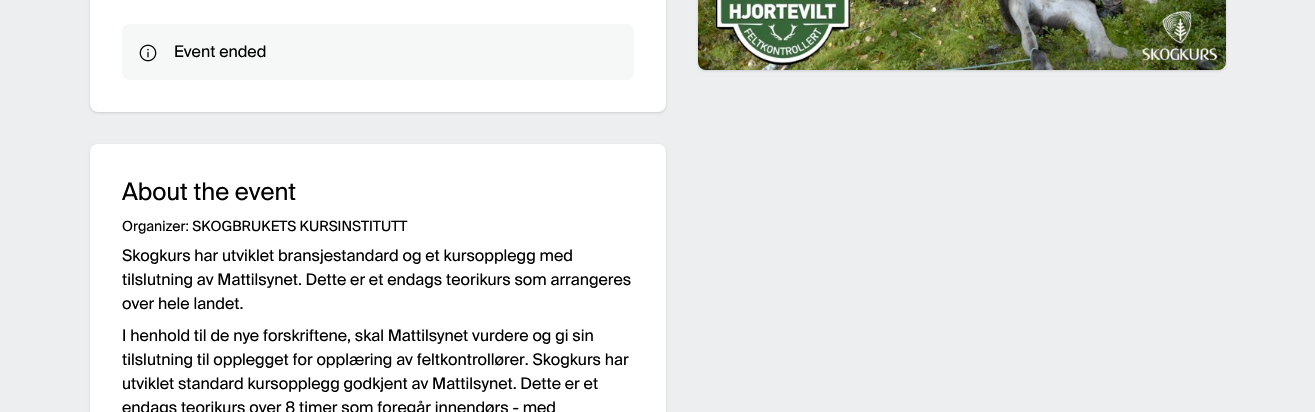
void draw(SkCanvas* canvas) {
    SkPaint paint;
    paint.setAntiAlias(true);
    canvas->clear(0xFFEDEEEF);
    paint.setColor(0x1A000000);
    paint.setMaskFilter(SkMaskFilter::MakeBlur(kNormal_SkBlurStyle, 1));
    canvas->drawRoundRect(SkRect::MakeXYWH(91, -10, 574, 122), 7, 7, paint);
    paint.setMaskFilter(nullptr);
    paint.setMaskFilter(SkMaskFilter::MakeBlur(kNormal_SkBlurStyle, 1.5f));
    canvas->drawRoundRect(SkRect::MakeXYWH(90, -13, 576, 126), 8, 8, paint);
    paint.setMaskFilter(nullptr);
    paint.setColor(0xFFFFFFFF);
    canvas->drawRoundRect(SkRect::MakeXYWH(90, -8, 576, 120), 8, 8, paint);
    paint.setColor(0xFFF6F7F7);
    canvas->drawRoundRect(SkRect::MakeXYWH(122, 24, 512, 56), 8, 8, paint);
    canvas->drawImageRect(SkImages::DeferredFromEncodedData(SkData::MakeFromFileName("img1.png")), SkRect::MakeXYWH(139, 44, 18, 18), SkSamplingOptions());
    SkFont font1(fontMgr->matchFamilyStyle("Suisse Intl", SkFontStyle::Normal()), 16);
    font1.setSubpixel(true);
    paint.setColor(0xFF000000);
    canvas->drawString("Event ended", 174, 57, font1, paint);
    paint.setColor(0x1A000000);
    paint.setMaskFilter(SkMaskFilter::MakeBlur(kNormal_SkBlurStyle, 1.5f));
    canvas->drawRoundRect(SkRect::MakeXYWH(90, 145, 576, 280), 8, 8, paint);
    paint.setMaskFilter(nullptr);
    paint.setColor(0xFFFFFFFF);
    canvas->drawRoundRect(SkRect::MakeXYWH(90, 144, 576, 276), 8, 8, paint);
    SkFont font2(fontMgr->matchFamilyStyle("Suisse Intl", SkFontStyle::Normal()), 24);
    font2.setSubpixel(true);
    paint.setColor(0xFF000000);
    canvas->drawString("About the event", 122, 200, font2, paint);
    SkFont font3(fontMgr->matchFamilyStyle("Suisse Intl", SkFontStyle::Normal()), 14);
    font3.setSubpixel(true);
    canvas->drawString("Organizer: SKOGBRUKETS KURSINSTITUTT", 122, 231, font3, paint);
    canvas->drawString("Skogkurs har utviklet bransjestandard og et kursopplegg med", 122, 261, font1, paint);
    canvas->drawString("tilslutning av Mattilsynet. Dette er et endags teorikurs som arrangeres", 122, 285, font1, paint);
    canvas->drawString("over hele landet.", 122, 309, font1, paint);
    canvas->drawString("I henhold til de nye forskriftene, skal Mattilsynet vurdere og gi sin", 122, 341, font1, paint);
    canvas->drawString("tilslutning til opplegget for opplæring av feltkontrollører. Skogkurs har", 122, 365, font1, paint);
    canvas->drawString("utviklet standard kursopplegg godkjent av Mattilsynet. Dette er et", 122, 389, font1, paint);
    canvas->drawString("endags teorikurs over 8 timer som foregår innendørs - med", 122, 413, font1, paint);
    paint.setColor(0x1A000000);
    paint.setMaskFilter(SkMaskFilter::MakeBlur(kNormal_SkBlurStyle, 1));
    canvas->drawRoundRect(SkRect::MakeXYWH(699, -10, 526, 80), 7, 7, paint);
    paint.setMaskFilter(nullptr);
    paint.setMaskFilter(SkMaskFilter::MakeBlur(kNormal_SkBlurStyle, 1.5f));
    canvas->drawRoundRect(SkRect::MakeXYWH(698, -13, 528, 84), 8, 8, paint);
    paint.setMaskFilter(nullptr);
    canvas->drawImageRect(SkImages::DeferredFromEncodedData(SkData::MakeFromFileName("img2.png")), SkRect::MakeXYWH(698, 0, 528, 70), SkSamplingOptions());
}
